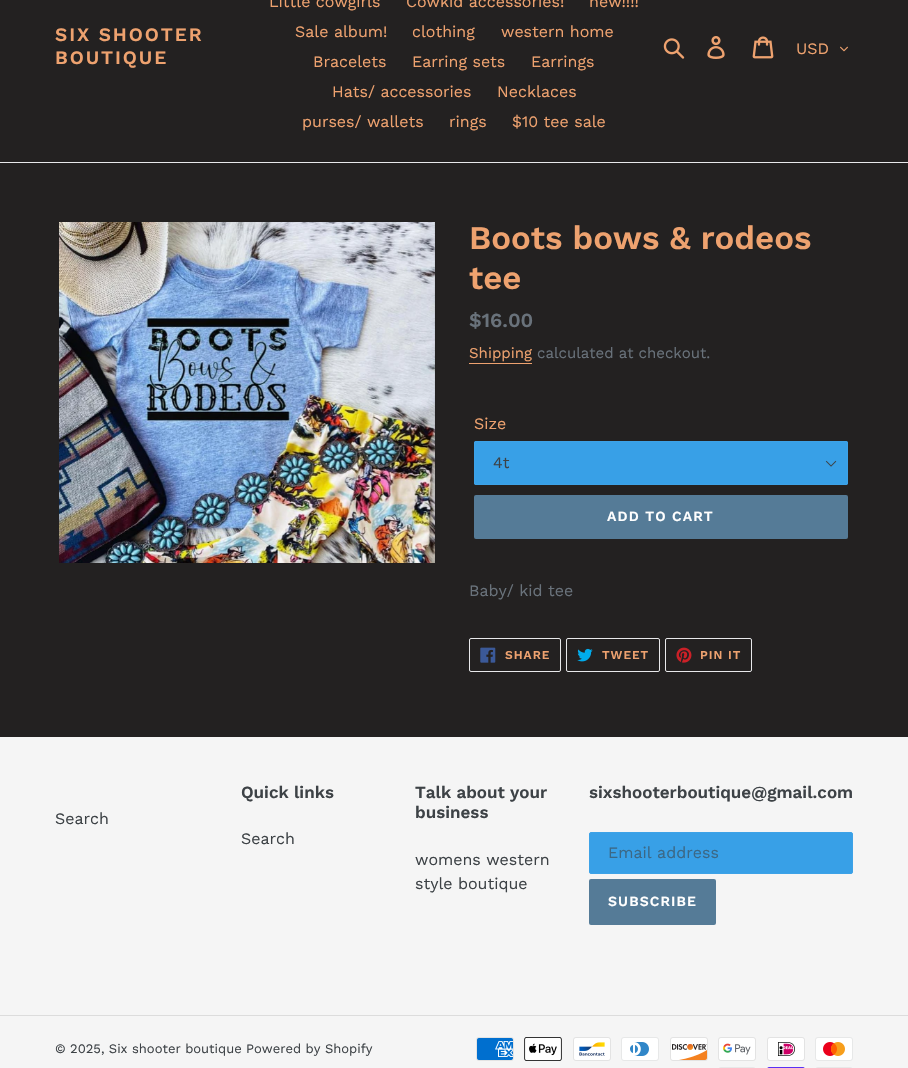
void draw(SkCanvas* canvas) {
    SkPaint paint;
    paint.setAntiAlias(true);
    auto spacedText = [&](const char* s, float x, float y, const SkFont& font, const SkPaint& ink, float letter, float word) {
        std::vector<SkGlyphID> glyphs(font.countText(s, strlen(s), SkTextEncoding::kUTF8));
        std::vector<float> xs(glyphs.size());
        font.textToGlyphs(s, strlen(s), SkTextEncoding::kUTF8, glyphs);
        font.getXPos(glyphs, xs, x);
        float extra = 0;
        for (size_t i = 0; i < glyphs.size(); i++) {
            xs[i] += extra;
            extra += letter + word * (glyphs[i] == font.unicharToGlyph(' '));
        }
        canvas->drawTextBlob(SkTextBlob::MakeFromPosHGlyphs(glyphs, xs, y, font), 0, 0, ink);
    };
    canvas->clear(0xFF232121);
    paint.setColor(0xFFE8E9EB);
    canvas->drawRect(SkRect::MakeXYWH(0, 162, 908, 1), paint);
    SkFont font1(fontMgr->matchFamilyStyle("Work Sans", SkFontStyle(600, SkFontStyle::kNormal_Width, SkFontStyle::kUpright_Slant)), 19);
    font1.setSubpixel(true);
    paint.setColor(0xFFEEA26F);
    spacedText("SIX SHOOTER", 55, 41, font1, paint, 1.9f, 0);
    spacedText("BOUTIQUE", 55, 64, font1, paint, 1.9f, 0);
    SkFont font2(fontMgr->matchFamilyStyle("Work Sans", SkFontStyle::Normal()), 16);
    font2.setSubpixel(true);
    canvas->drawString("Little cowgirls", 269, 7, font2, paint);
    canvas->drawString("Cowkid accessories!", 406, 7, font2, paint);
    canvas->drawString("new!!!!", 589, 7, font2, paint);
    canvas->drawString("Sale album!", 295, 37, font2, paint);
    canvas->drawString("clothing", 412, 37, font2, paint);
    canvas->drawString("western home", 501, 37, font2, paint);
    canvas->drawString("Bracelets", 313, 67, font2, paint);
    canvas->drawString("Earring sets", 412, 67, font2, paint);
    canvas->drawString("Earrings", 531, 67, font2, paint);
    canvas->drawString("Hats/ accessories", 332, 97, font2, paint);
    canvas->drawString("Necklaces", 497, 97, font2, paint);
    canvas->drawString("purses/ wallets", 302, 127, font2, paint);
    canvas->drawString("rings", 449, 127, font2, paint);
    canvas->drawString("$10 tee sale", 512, 127, font2, paint);
    canvas->drawImageRect(SkImages::DeferredFromEncodedData(SkData::MakeFromFileName("img1.png")), SkRect::MakeXYWH(663, 38, 22, 21), SkSamplingOptions());
    canvas->drawImageRect(SkImages::DeferredFromEncodedData(SkData::MakeFromFileName("img2.png")), SkRect::MakeXYWH(707, 36, 18, 23), SkSamplingOptions());
    canvas->drawImageRect(SkImages::DeferredFromEncodedData(SkData::MakeFromFileName("img3.png")), SkRect::MakeXYWH(752, 36, 22, 23), SkSamplingOptions());
    canvas->drawString("USD", 796, 54, font2, paint);
    canvas->drawImageRect(SkImages::DeferredFromEncodedData(SkData::MakeFromFileName("img4.png")), SkRect::MakeXYWH(840, 46, 8, 6), SkSamplingOptions());
    canvas->drawImageRect(SkImages::DeferredFromEncodedData(SkData::MakeFromFileName("img5.png")), SkRect::MakeXYWH(59, 222, 376, 341), SkSamplingOptions());
    SkFont font3(fontMgr->matchFamilyStyle("Work Sans", SkFontStyle(600, SkFontStyle::kNormal_Width, SkFontStyle::kUpright_Slant)), 33);
    font3.setSubpixel(true);
    canvas->drawString("Boots bows & rodeos", 469, 249, font3, paint);
    canvas->drawString("tee", 469, 289, font3, paint);
    SkFont font4(fontMgr->matchFamilyStyle("Work Sans", SkFontStyle(600, SkFontStyle::kNormal_Width, SkFontStyle::kUpright_Slant)), 20);
    font4.setSubpixel(true);
    paint.setColor(0xFF69727B);
    canvas->drawString("$16.00", 469, 327, font4, paint);
    SkFont font5(fontMgr->matchFamilyStyle("Work Sans", SkFontStyle::Normal()), 15);
    font5.setSubpixel(true);
    paint.setColor(0xFFEEA26F);
    canvas->drawString("Shipping", 469, 358, font5, paint);
    canvas->drawRect(SkRect::MakeXYWH(469, 363, 63, 1), paint);
    paint.setColor(0xFF69727B);
    canvas->drawString("calculated at checkout.", 537, 358, font5, paint);
    paint.setColor(0xFFEEA26F);
    canvas->drawString("Size", 474, 429, font2, paint);
    paint.setColor(0xFF38A0E7);
    canvas->drawRoundRect(SkRect::MakeXYWH(474, 441, 374, 44), 2, 2, paint);
    canvas->drawImageRect(SkImages::DeferredFromEncodedData(SkData::MakeFromFileName("img6.png")), SkRect::MakeXYWH(825, 460, 12, 7), SkSamplingOptions());
    paint.setStyle(SkPaint::kStroke_Style);
    paint.setStrokeWidth(1);
    paint.setColor(0xFF3DA2E7);
    canvas->drawRoundRect(SkRect::MakeXYWH(474.5f, 441.5f, 373, 43), 1.5f, 1.5f, paint);
    paint.setStyle(SkPaint::kFill_Style);
    paint.setColor(0xFF3D4246);
    canvas->drawString("4t", 493, 468, font2, paint);
    paint.setColor(0xFF557B97);
    canvas->drawRoundRect(SkRect::MakeXYWH(474, 495, 374, 44), 2, 2, paint);
    SkFont font6(fontMgr->matchFamilyStyle("Work Sans", SkFontStyle(600, SkFontStyle::kNormal_Width, SkFontStyle::kUpright_Slant)), 14);
    font6.setSubpixel(true);
    paint.setColor(0xFFFFFFFF);
    spacedText("ADD TO CART", 607, 521, font6, paint, 1.1f, 0);
    paint.setColor(0xFF69727B);
    canvas->drawString("Baby/ kid tee", 469, 596, font2, paint);
    paint.setStyle(SkPaint::kStroke_Style);
    paint.setColor(0xFFE8E9EB);
    canvas->drawRoundRect(SkRect::MakeXYWH(469.5f, 638.5f, 91, 33), 1.5f, 1.5f, paint);
    canvas->drawImageRect(SkImages::DeferredFromEncodedData(SkData::MakeFromFileName("img7.png")), SkRect::MakeXYWH(480, 647, 16, 16), SkSamplingOptions());
    SkFont font7(fontMgr->matchFamilyStyle("Work Sans", SkFontStyle(600, SkFontStyle::kNormal_Width, SkFontStyle::kUpright_Slant)), 12);
    font7.setSubpixel(true);
    paint.setStyle(SkPaint::kFill_Style);
    paint.setColor(0xFFEEA26F);
    spacedText("SHARE", 505, 659, font7, paint, 1, 0);
    paint.setStyle(SkPaint::kStroke_Style);
    paint.setColor(0xFFE8E9EB);
    canvas->drawRoundRect(SkRect::MakeXYWH(566.5f, 638.5f, 93, 33), 1.5f, 1.5f, paint);
    canvas->drawImageRect(SkImages::DeferredFromEncodedData(SkData::MakeFromFileName("img8.png")), SkRect::MakeXYWH(577, 648, 16, 14), SkSamplingOptions());
    paint.setStyle(SkPaint::kFill_Style);
    paint.setColor(0xFFEEA26F);
    spacedText("TWEET", 602, 659, font7, paint, 1, 0);
    paint.setStyle(SkPaint::kStroke_Style);
    paint.setColor(0xFFE8E9EB);
    canvas->drawRoundRect(SkRect::MakeXYWH(665.5f, 638.5f, 86, 33), 1.5f, 1.5f, paint);
    canvas->drawImageRect(SkImages::DeferredFromEncodedData(SkData::MakeFromFileName("img9.png")), SkRect::MakeXYWH(676, 647, 16, 16), SkSamplingOptions());
    paint.setStyle(SkPaint::kFill_Style);
    paint.setColor(0xFFEEA26F);
    spacedText("PIN IT", 700, 659, font7, paint, 1, 0);
    paint.setColor(0xFFF5F5F5);
    canvas->drawRect(SkRect::MakeXYWH(0, 737, 908, 331), paint);
    paint.setColor(0xFF3D4246);
    canvas->drawString("Search", 55, 824, font2, paint);
    SkFont font8(fontMgr->matchFamilyStyle("Work Sans", SkFontStyle(600, SkFontStyle::kNormal_Width, SkFontStyle::kUpright_Slant)), 17);
    font8.setSubpixel(true);
    canvas->drawString("Quick links", 241, 798, font8, paint);
    canvas->drawString("Search", 241, 844, font2, paint);
    canvas->drawString("Talk about your", 415, 798, font8, paint);
    canvas->drawString("business", 415, 818, font8, paint);
    canvas->drawString("womens western", 415, 865, font2, paint);
    canvas->drawString("style boutique", 415, 889, font2, paint);
    canvas->drawString("sixshooterboutique@gmail.com", 589, 798, font8, paint);
    paint.setColor(0xFF38A0E7);
    canvas->drawRoundRect(SkRect::MakeXYWH(589.5f, 832.5f, 263, 41), 1.5f, 1.5f, paint);
    paint.setStyle(SkPaint::kStroke_Style);
    paint.setColor(0xFF3DA2E7);
    canvas->drawRoundRect(SkRect::MakeXYWH(589.5f, 832.5f, 263, 41), 1.5f, 1.5f, paint);
    paint.setStyle(SkPaint::kFill_Style);
    paint.setColor(0xFF3B6886);
    canvas->drawString("Email address", 608, 858, font2, paint);
    paint.setColor(0xFF557B97);
    canvas->drawRoundRect(SkRect::MakeXYWH(589, 879, 127, 46), 2, 2, paint);
    paint.setColor(0xFFFFFFFF);
    spacedText("SUBSCRIBE", 608, 906, font6, paint, 1.1f, 0);
    paint.setColor(0xFFDCDCDC);
    canvas->drawRect(SkRect::MakeXYWH(0, 1015, 908, 1), paint);
    SkFont font9(fontMgr->matchFamilyStyle("Work Sans", SkFontStyle::Normal()), 13);
    font9.setSubpixel(true);
    paint.setColor(0xFF3D4246);
    canvas->drawString("© 2025, Six shooter boutique Powered by Shopify", 55, 1053, font9, paint);
    canvas->drawImageRect(SkImages::DeferredFromEncodedData(SkData::MakeFromFileName("img10.png")), SkRect::MakeXYWH(476, 1037, 38, 24), SkSamplingOptions());
    canvas->drawImageRect(SkImages::DeferredFromEncodedData(SkData::MakeFromFileName("img11.png")), SkRect::MakeXYWH(524, 1037, 38, 24), SkSamplingOptions());
    canvas->drawImageRect(SkImages::DeferredFromEncodedData(SkData::MakeFromFileName("img12.png")), SkRect::MakeXYWH(573, 1037, 38, 24), SkSamplingOptions());
    canvas->drawImageRect(SkImages::DeferredFromEncodedData(SkData::MakeFromFileName("img13.png")), SkRect::MakeXYWH(621, 1037, 38, 24), SkSamplingOptions());
    canvas->drawImageRect(SkImages::DeferredFromEncodedData(SkData::MakeFromFileName("img14.png")), SkRect::MakeXYWH(670, 1037, 38, 24), SkSamplingOptions());
    canvas->drawImageRect(SkImages::DeferredFromEncodedData(SkData::MakeFromFileName("img15.png")), SkRect::MakeXYWH(718, 1037, 38, 24), SkSamplingOptions());
    canvas->drawImageRect(SkImages::DeferredFromEncodedData(SkData::MakeFromFileName("img16.png")), SkRect::MakeXYWH(767, 1037, 38, 24), SkSamplingOptions());
    canvas->drawImageRect(SkImages::DeferredFromEncodedData(SkData::MakeFromFileName("img17.png")), SkRect::MakeXYWH(815, 1037, 38, 24), SkSamplingOptions());
    canvas->drawImageRect(SkImages::DeferredFromEncodedData(SkData::MakeFromFileName("img18.png")), SkRect::MakeXYWH(719, 1067, 36, 1), SkSamplingOptions());
    canvas->drawImageRect(SkImages::DeferredFromEncodedData(SkData::MakeFromFileName("img19.png")), SkRect::MakeXYWH(767, 1067, 38, 1), SkSamplingOptions());
    canvas->drawImageRect(SkImages::DeferredFromEncodedData(SkData::MakeFromFileName("img18.png")), SkRect::MakeXYWH(816, 1067, 36, 1), SkSamplingOptions());
}
